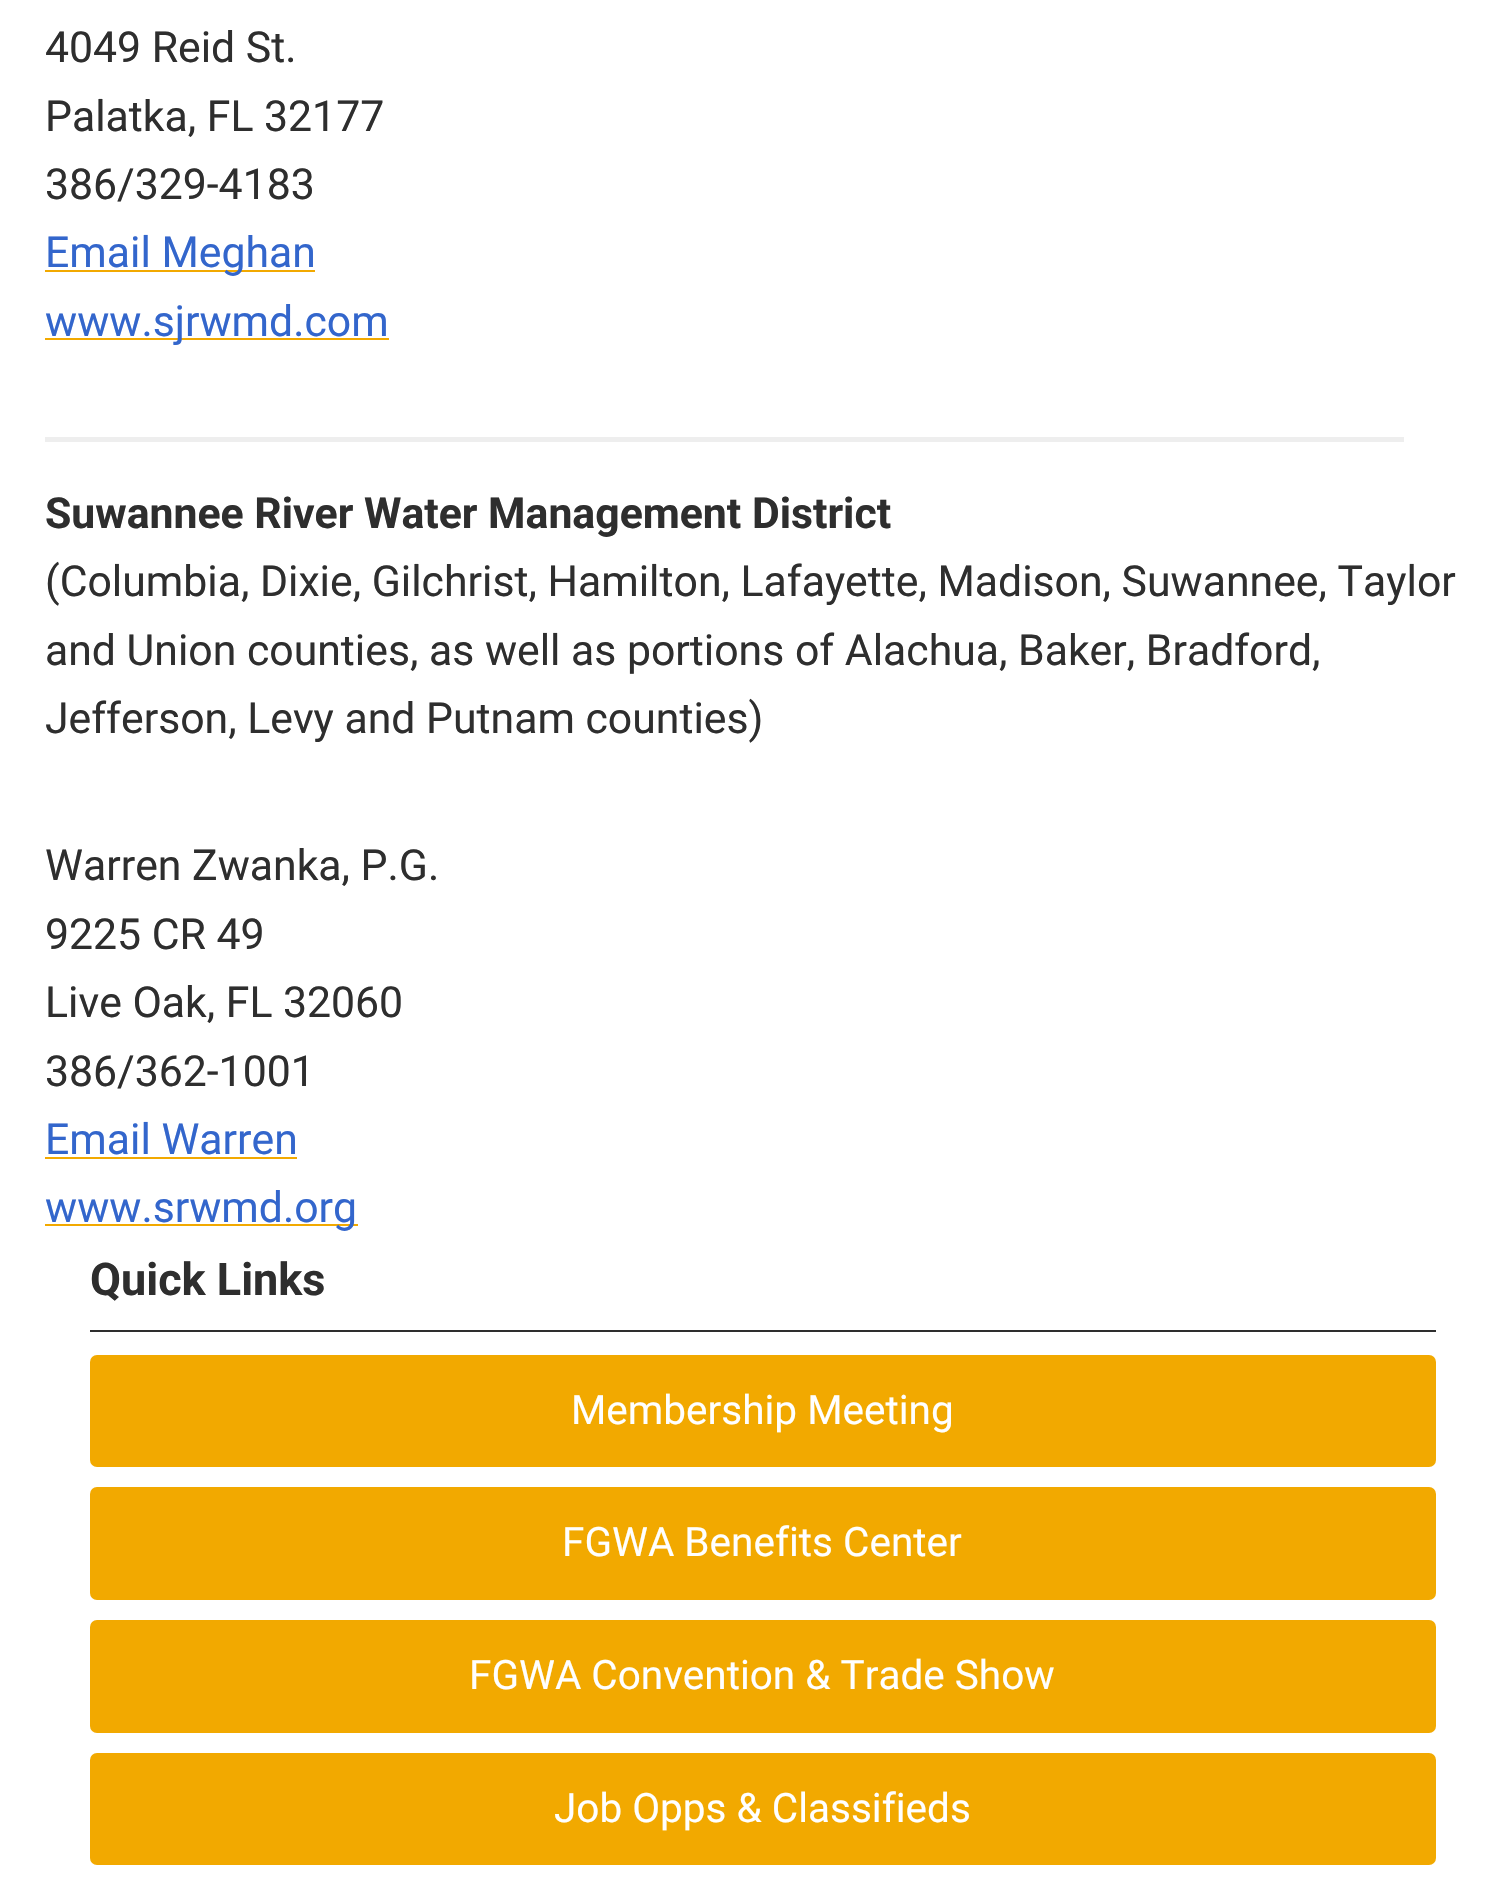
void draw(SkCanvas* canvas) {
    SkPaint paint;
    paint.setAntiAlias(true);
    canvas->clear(0xFFFFFFFF);
    SkFont font1(fontMgr->matchFamilyStyle("Roboto", SkFontStyle::Normal()), 42.75f);
    font1.setSubpixel(true);
    paint.setColor(0xFF2E2E2E);
    canvas->drawString("4049 Reid St.", 45, 62, font1, paint);
    canvas->drawString("Palatka, FL 32177", 45, 131, font1, paint);
    canvas->drawString("386/329-4183", 45, 199, font1, paint);
    paint.setColor(0xFFF2A900);
    canvas->drawRect(SkRect::MakeXYWH(45, 270, 270, 2), paint);
    paint.setColor(0xFF3366CC);
    canvas->drawString("Email Meghan", 45, 267, font1, paint);
    paint.setColor(0xFFF2A900);
    canvas->drawRect(SkRect::MakeXYWH(45, 338, 344, 2), paint);
    paint.setColor(0xFF3366CC);
    canvas->drawString("www.sjrwmd.com", 45, 336, font1, paint);
    paint.setColor(0xFFEEEEEE);
    canvas->drawRect(SkRect::MakeXYWH(45, 437, 1359, 5), paint);
    SkFont font2(fontMgr->matchFamilyStyle("Roboto", SkFontStyle::Bold()), 42.75f);
    font2.setSubpixel(true);
    paint.setColor(0xFF2E2E2E);
    canvas->drawString("Suwannee River Water Management District", 45, 528, font2, paint);
    canvas->drawString("(Columbia, Dixie, Gilchrist, Hamilton, Lafayette, Madison, Suwannee, Taylor", 45, 596, font1, paint);
    canvas->drawString("and Union counties, as well as portions of Alachua, Baker, Bradford,", 45, 665, font1, paint);
    canvas->drawString("Jefferson, Levy and Putnam counties)", 45, 733, font1, paint);
    canvas->drawString("Warren Zwanka, P.G.", 45, 880, font1, paint);
    canvas->drawString("9225 CR 49", 45, 949, font1, paint);
    canvas->drawString("Live Oak, FL 32060", 45, 1017, font1, paint);
    canvas->drawString("386/362-1001", 45, 1086, font1, paint);
    paint.setColor(0xFF3366CC);
    canvas->drawString("Email Warren", 45, 1154, font1, paint);
    paint.setColor(0xFFF2A900);
    canvas->drawRect(SkRect::MakeXYWH(45, 1157, 252, 2), paint);
    canvas->drawRect(SkRect::MakeXYWH(45, 1224, 313, 2), paint);
    paint.setColor(0xFF3366CC);
    canvas->drawString("www.srwmd.org", 45, 1222, font1, paint);
    paint.setColor(0xFF2E2E2E);
    canvas->drawRect(SkRect::MakeXYWH(90, 1330, 1346, 2), paint);
    SkFont font3(fontMgr->matchFamilyStyle("Roboto", SkFontStyle::Bold()), 45);
    font3.setSubpixel(true);
    canvas->drawString("Quick Links", 90, 1295, font3, paint);
    paint.setColor(0xFFF2A900);
    canvas->drawRoundRect(SkRect::MakeXYWH(90, 1355, 1346, 112), 7, 7, paint);
    SkFont font4(fontMgr->matchFamilyStyle("Roboto", SkFontStyle::Normal()), 40.5f);
    font4.setSubpixel(true);
    paint.setColor(0xFFFFFFFF);
    canvas->drawString("Membership Meeting", 571, 1424, font4, paint);
    paint.setColor(0xFFF2A900);
    canvas->drawRoundRect(SkRect::MakeXYWH(90, 1487, 1346, 113), 7, 7, paint);
    paint.setColor(0xFFFFFFFF);
    canvas->drawString("FGWA Benefits Center", 562, 1556, font4, paint);
    paint.setColor(0xFFF2A900);
    canvas->drawRoundRect(SkRect::MakeXYWH(90, 1620, 1346, 113), 7, 7, paint);
    paint.setColor(0xFFFFFFFF);
    canvas->drawString("FGWA Convention & Trade Show", 469, 1689, font4, paint);
    paint.setColor(0xFFF2A900);
    canvas->drawRoundRect(SkRect::MakeXYWH(90, 1753, 1346, 112), 7, 7, paint);
    paint.setColor(0xFFFFFFFF);
    canvas->drawString("Job Opps & Classifieds", 554, 1822, font4, paint);
}
